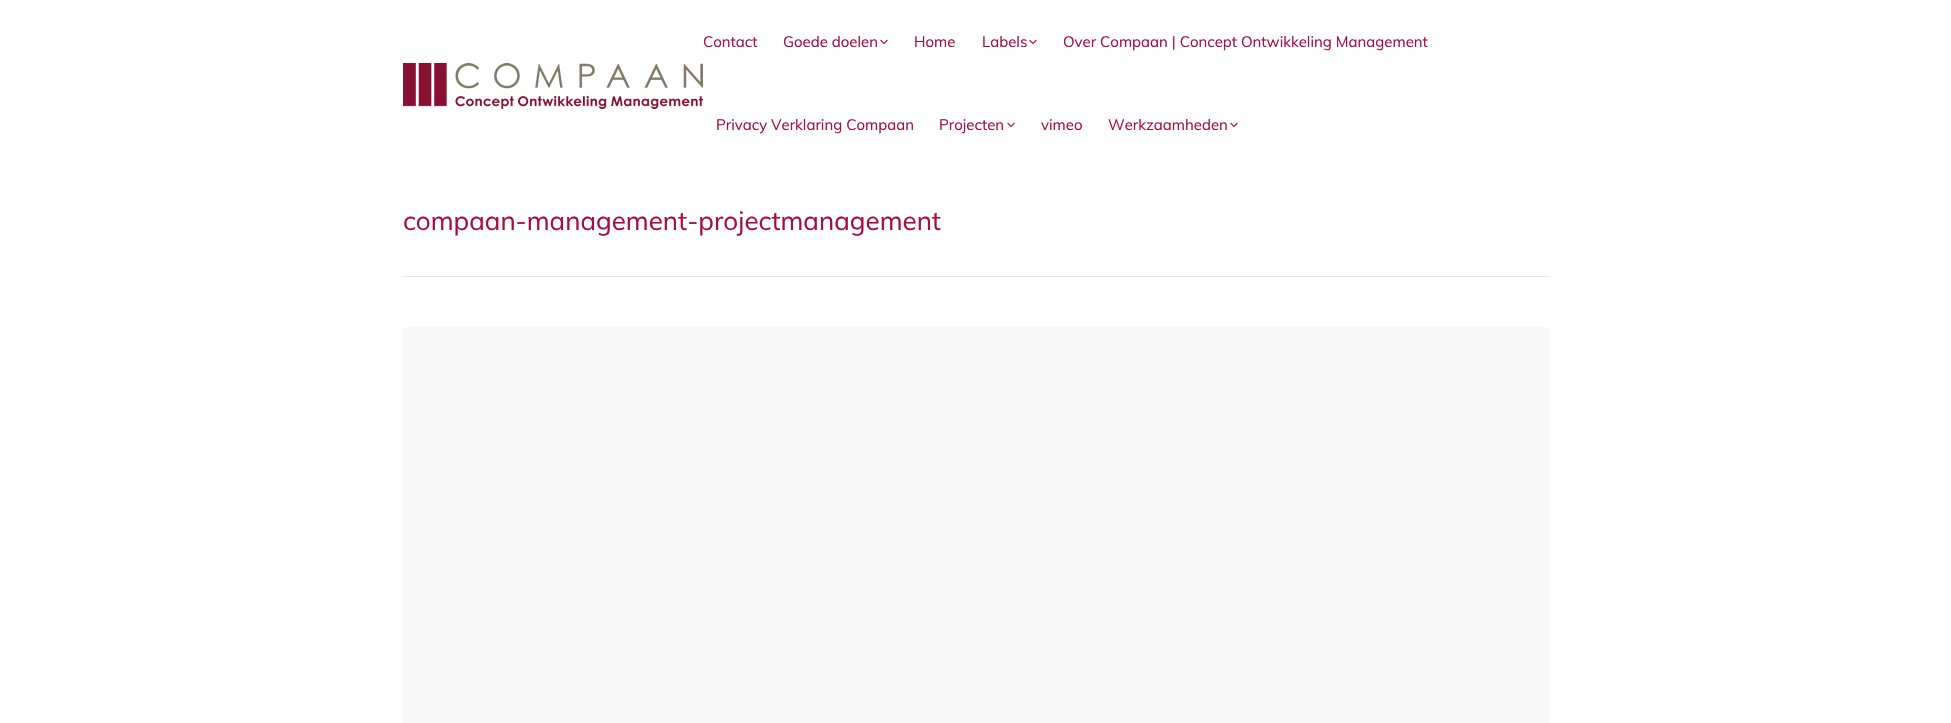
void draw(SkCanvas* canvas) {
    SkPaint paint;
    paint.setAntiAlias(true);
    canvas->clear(0xFFFFFFFF);
    canvas->drawImageRect(SkImages::DeferredFromEncodedData(SkData::MakeFromFileName("img1.png")), SkRect::MakeXYWH(403, 63, 300, 46), SkSamplingOptions());
    SkFont font1(fontMgr->matchFamilyStyle("Muli", SkFontStyle::Normal()), 15);
    font1.setSubpixel(true);
    paint.setColor(0xFFA80D41);
    canvas->drawString("Contact", 703, 47, font1, paint);
    canvas->drawString("Goede doelen", 783, 47, font1, paint);
    canvas->drawImageRect(SkImages::DeferredFromEncodedData(SkData::MakeFromFileName("img2.png")), SkRect::MakeXYWH(880, 39, 8, 5), SkSamplingOptions());
    canvas->drawString("Home", 914, 47, font1, paint);
    canvas->drawString("Labels", 982, 47, font1, paint);
    canvas->drawImageRect(SkImages::DeferredFromEncodedData(SkData::MakeFromFileName("img2.png")), SkRect::MakeXYWH(1029, 39, 8, 5), SkSamplingOptions());
    canvas->drawString("Over Compaan | Concept Ontwikkeling Management", 1063, 47, font1, paint);
    canvas->drawString("Privacy Verklaring Compaan", 716, 130, font1, paint);
    canvas->drawString("Projecten", 939, 130, font1, paint);
    canvas->drawImageRect(SkImages::DeferredFromEncodedData(SkData::MakeFromFileName("img2.png")), SkRect::MakeXYWH(1007, 122, 8, 5), SkSamplingOptions());
    canvas->drawString("vimeo", 1041, 130, font1, paint);
    canvas->drawString("Werkzaamheden", 1108, 130, font1, paint);
    canvas->drawImageRect(SkImages::DeferredFromEncodedData(SkData::MakeFromFileName("img2.png")), SkRect::MakeXYWH(1230, 122, 8, 5), SkSamplingOptions());
    paint.setColor(0xFFE6E7E9);
    canvas->drawRect(SkRect::MakeXYWH(403, 276, 1146, 1), paint);
    SkFont font2(fontMgr->matchFamilyStyle("Muli", SkFontStyle::Normal()), 26);
    font2.setSubpixel(true);
    paint.setColor(0xFFA80D41);
    canvas->drawString("compaan-management-projectmanagement", 403, 230, font2, paint);
    paint.setColor(0xFFF9F9F9);
    canvas->drawRect(SkRect::MakeXYWH(403, 327, 1146, 396), paint);
}
